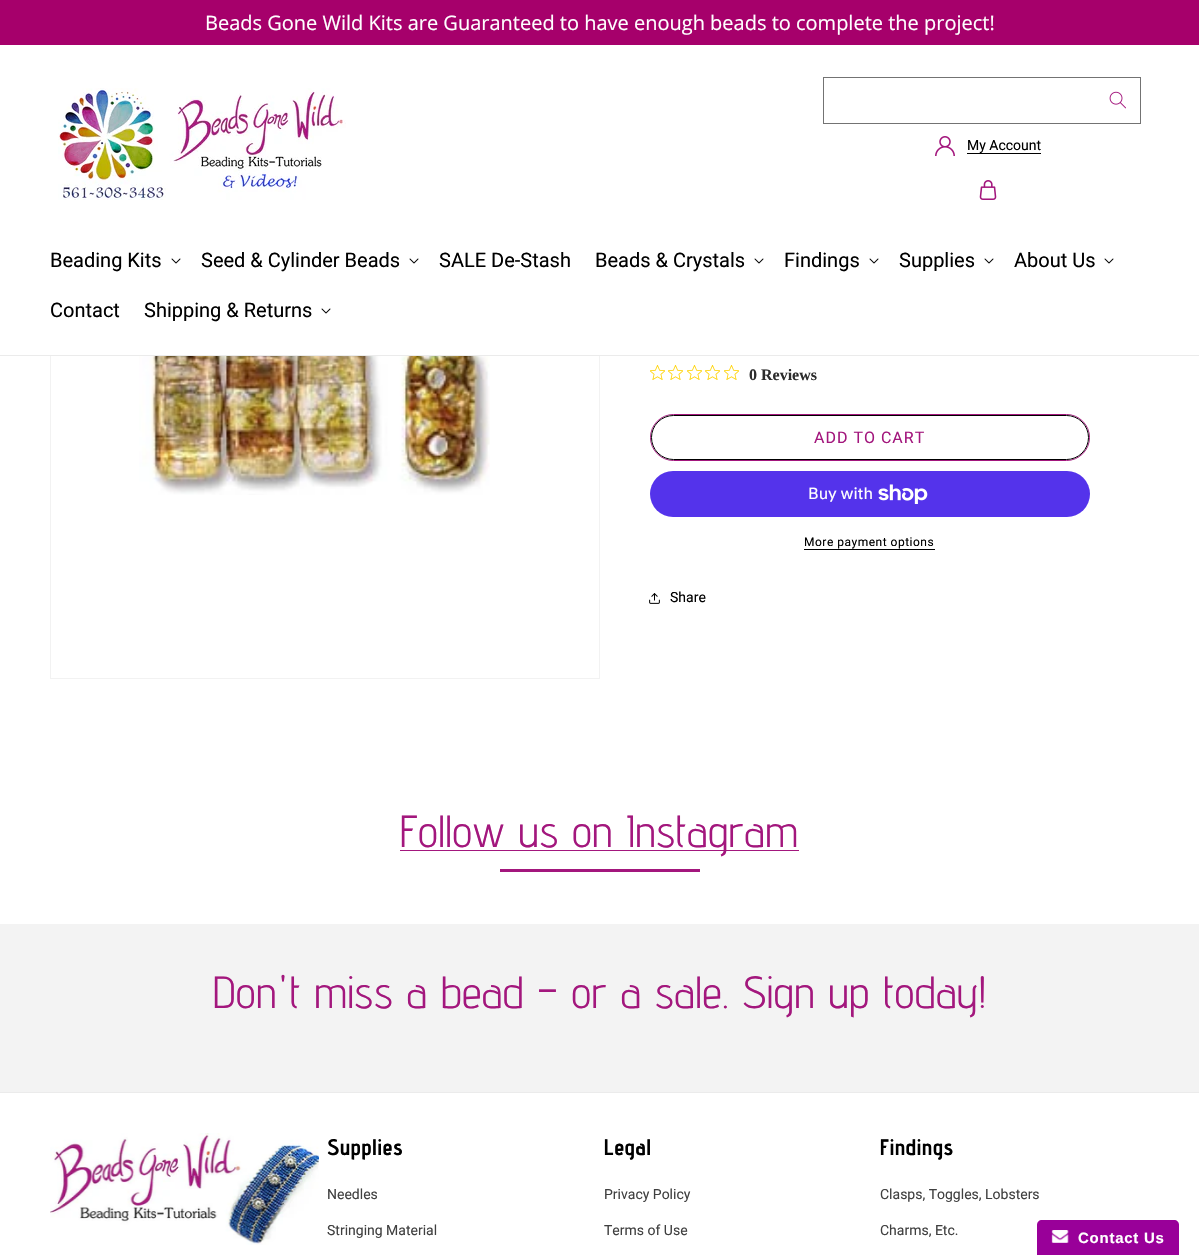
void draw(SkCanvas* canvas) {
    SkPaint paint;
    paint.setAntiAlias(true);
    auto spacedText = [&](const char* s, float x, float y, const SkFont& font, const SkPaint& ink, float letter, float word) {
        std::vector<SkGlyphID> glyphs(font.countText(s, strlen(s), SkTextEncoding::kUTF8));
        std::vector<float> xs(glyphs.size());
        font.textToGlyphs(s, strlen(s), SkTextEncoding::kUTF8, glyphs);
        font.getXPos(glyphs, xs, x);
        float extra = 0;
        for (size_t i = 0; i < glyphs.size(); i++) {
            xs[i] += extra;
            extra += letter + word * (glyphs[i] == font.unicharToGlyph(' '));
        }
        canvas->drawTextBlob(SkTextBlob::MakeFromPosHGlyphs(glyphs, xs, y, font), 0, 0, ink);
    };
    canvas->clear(0xFFFFFFFF);
    paint.setColor(0xFFA6006B);
    canvas->drawRect(SkRect::MakeXYWH(0, 0, 1199, 45), paint);
    SkFont font1(fontMgr->matchFamilyStyle("Open Sans", SkFontStyle::Normal()), 20);
    font1.setSubpixel(true);
    paint.setColor(0xFFFFFFFF);
    canvas->drawString("Beads Gone Wild Kits are Guaranteed to have enough beads to complete the project!", 205, 30, font1, paint);
    paint.setStyle(SkPaint::kStroke_Style);
    paint.setStrokeWidth(1);
    paint.setColor(0xFFF2F2F2);
    canvas->drawRect(SkRect::MakeXYWH(50.5f, 130.5f, 549, 548), paint);
    paint.setStyle(SkPaint::kFill_Style);
    paint.setColor(0xFFFFFFFF);
    canvas->drawRect(SkRect::MakeXYWH(50, 130, 550, 225), paint);
    paint.setColor(0xFFEBEBEB);
    canvas->drawRect(SkRect::MakeXYWH(0, 355, 1199, 1), paint);
    canvas->drawImageRect(SkImages::DeferredFromEncodedData(SkData::MakeFromFileName("img1.png")), SkRect::MakeXYWH(58, 88, 288, 112), SkSamplingOptions());
    canvas->drawImageRect(SkImages::DeferredFromEncodedData(SkData::MakeFromFileName("img2.png")), SkRect::MakeXYWH(1109, 91, 17, 18), SkSamplingOptions());
    paint.setStyle(SkPaint::kStroke_Style);
    paint.setColor(0xFF737373);
    canvas->drawRect(SkRect::MakeXYWH(823.5f, 77.5f, 317, 46), paint);
    canvas->drawImageRect(SkImages::DeferredFromEncodedData(SkData::MakeFromFileName("img3.png")), SkRect::MakeXYWH(935, 136, 20, 20), SkSamplingOptions());
    SkFont font2(fontMgr->matchFamilyStyle("Roboto", SkFontStyle::Normal()), 14);
    font2.setSubpixel(true);
    paint.setStyle(SkPaint::kFill_Style);
    paint.setColor(0xFF000000);
    canvas->drawString("My Account", 967, 150, font2, paint);
    canvas->drawRect(SkRect::MakeXYWH(967, 153, 74, 1), paint);
    canvas->drawImageRect(SkImages::DeferredFromEncodedData(SkData::MakeFromFileName("img4.png")), SkRect::MakeXYWH(979, 180, 18, 20), SkSamplingOptions());
    SkFont font3(fontMgr->matchFamilyStyle("Roboto", SkFontStyle::Normal()), 20);
    font3.setSubpixel(true);
    canvas->drawString("Beading Kits", 50, 267, font3, paint);
    canvas->drawImageRect(SkImages::DeferredFromEncodedData(SkData::MakeFromFileName("img5.png")), SkRect::MakeXYWH(171, 258, 10, 6), SkSamplingOptions());
    canvas->drawString("Seed & Cylinder Beads", 201, 267, font3, paint);
    canvas->drawImageRect(SkImages::DeferredFromEncodedData(SkData::MakeFromFileName("img5.png")), SkRect::MakeXYWH(409, 258, 10, 6), SkSamplingOptions());
    canvas->drawString("SALE De-Stash", 439, 267, font3, paint);
    canvas->drawString("Beads & Crystals", 595, 267, font3, paint);
    canvas->drawImageRect(SkImages::DeferredFromEncodedData(SkData::MakeFromFileName("img5.png")), SkRect::MakeXYWH(754, 258, 10, 6), SkSamplingOptions());
    canvas->drawString("Findings", 784, 267, font3, paint);
    canvas->drawImageRect(SkImages::DeferredFromEncodedData(SkData::MakeFromFileName("img5.png")), SkRect::MakeXYWH(869, 258, 10, 6), SkSamplingOptions());
    canvas->drawString("Supplies", 899, 267, font3, paint);
    canvas->drawImageRect(SkImages::DeferredFromEncodedData(SkData::MakeFromFileName("img5.png")), SkRect::MakeXYWH(984, 258, 10, 6), SkSamplingOptions());
    canvas->drawString("About Us", 1014, 267, font3, paint);
    canvas->drawImageRect(SkImages::DeferredFromEncodedData(SkData::MakeFromFileName("img5.png")), SkRect::MakeXYWH(1104, 258, 10, 6), SkSamplingOptions());
    canvas->drawString("Contact", 50, 317, font3, paint);
    canvas->drawString("Shipping & Returns", 144, 317, font3, paint);
    canvas->drawImageRect(SkImages::DeferredFromEncodedData(SkData::MakeFromFileName("img5.png")), SkRect::MakeXYWH(321, 308, 10, 6), SkSamplingOptions());
    canvas->drawImageRect(SkImages::DeferredFromEncodedData(SkData::MakeFromFileName("img6.png")), SkRect::MakeXYWH(139, 356, 351, 139), SkSamplingOptions());
    canvas->drawImageRect(SkImages::DeferredFromEncodedData(SkData::MakeFromFileName("img7.png")), SkRect::MakeXYWH(650, 365, 15, 15), SkSamplingOptions());
    canvas->drawImageRect(SkImages::DeferredFromEncodedData(SkData::MakeFromFileName("img7.png")), SkRect::MakeXYWH(668, 365, 15, 15), SkSamplingOptions());
    canvas->drawImageRect(SkImages::DeferredFromEncodedData(SkData::MakeFromFileName("img7.png")), SkRect::MakeXYWH(687, 365, 15, 15), SkSamplingOptions());
    canvas->drawImageRect(SkImages::DeferredFromEncodedData(SkData::MakeFromFileName("img7.png")), SkRect::MakeXYWH(705, 365, 15, 15), SkSamplingOptions());
    canvas->drawImageRect(SkImages::DeferredFromEncodedData(SkData::MakeFromFileName("img7.png")), SkRect::MakeXYWH(724, 365, 15, 15), SkSamplingOptions());
    SkFont font4(fontMgr->matchFamilyStyle("Liberation Serif", SkFontStyle::Bold()), 16);
    font4.setSubpixel(true);
    paint.setColor(0xFF2C2C2C);
    canvas->drawString("0 Reviews", 749, 380, font4, paint);
    paint.setStyle(SkPaint::kStroke_Style);
    paint.setColor(0xFFA3177D);
    canvas->drawRoundRect(SkRect::MakeXYWH(650.5f, 414.5f, 439, 46), 23, 23, paint);
    paint.setColor(0xFFFFFFFF);
    canvas->drawRoundRect(SkRect::MakeXYWH(651.5f, 415.5f, 437, 44), 22, 22, paint);
    paint.setColor(0xFF000000);
    canvas->drawRoundRect(SkRect::MakeXYWH(651.5f, 415.5f, 437, 44), 22, 22, paint);
    SkFont font5(fontMgr->matchFamilyStyle("Roboto", SkFontStyle::Normal()), 16);
    font5.setSubpixel(true);
    paint.setStyle(SkPaint::kFill_Style);
    paint.setColor(0xFFA3177D);
    spacedText("ADD TO CART", 814, 443, font5, paint, 1, 0);
    paint.setColor(0xFF5433EB);
    canvas->drawRoundRect(SkRect::MakeXYWH(650, 471, 440, 46), 23, 23, paint);
    SkFont font6(fontMgr->matchFamilyStyle("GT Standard", SkFontStyle::Normal()), 16);
    font6.setSubpixel(true);
    paint.setColor(0xFFFFFFFF);
    canvas->drawString("Buy with", 808, 499, font6, paint);
    canvas->drawImageRect(SkImages::DeferredFromEncodedData(SkData::MakeFromFileName("img8.png")), SkRect::MakeXYWH(878, 484, 50, 20), SkSamplingOptions());
    SkFont font7(fontMgr->matchFamilyStyle("Roboto", SkFontStyle::Normal()), 12);
    font7.setSubpixel(true);
    paint.setColor(0xFF000000);
    spacedText("More payment options", 804, 546, font7, paint, 0.5f, 0);
    canvas->drawRect(SkRect::MakeXYWH(804, 549, 131, 1), paint);
    canvas->drawImageRect(SkImages::DeferredFromEncodedData(SkData::MakeFromFileName("img9.png")), SkRect::MakeXYWH(649, 593, 11, 11), SkSamplingOptions());
    canvas->drawString("Share", 670, 602, font2, paint);
    paint.setColor(0xFFA3177D);
    canvas->drawRect(SkRect::MakeXYWH(400, 850, 399, 1), paint);
    SkFont font8(fontMgr->matchFamilyStyle("Advent Pro", SkFontStyle::Normal()), 45);
    font8.setSubpixel(true);
    spacedText("Follow us on Instagram", 400, 847, font8, paint, 0.75f, 0);
    canvas->drawRect(SkRect::MakeXYWH(500, 869, 200, 3), paint);
    paint.setColor(0xFFF3F3F3);
    canvas->drawRect(SkRect::MakeXYWH(0, 924, 1199, 168), paint);
    paint.setColor(0xFFA3177D);
    spacedText("Don't miss a bead – or a sale. Sign up today!", 213, 1008, font8, paint, 0.75f, 0);
    paint.setColor(0xFFEBEBEB);
    canvas->drawRect(SkRect::MakeXYWH(0, 1092, 1199, 1), paint);
    canvas->drawImageRect(SkImages::DeferredFromEncodedData(SkData::MakeFromFileName("img10.png")), SkRect::MakeXYWH(50, 1133, 269, 112), SkSamplingOptions());
    SkFont font9(fontMgr->matchFamilyStyle("Advent Pro", SkFontStyle::Bold()), 22.5f);
    font9.setSubpixel(true);
    paint.setColor(0xFF000000);
    spacedText("Supplies", 327, 1155, font9, paint, 0.75f, 0);
    paint.setColor(0xFF404040);
    canvas->drawString("Needles", 327, 1199, font2, paint);
    canvas->drawString("Stringing Material", 327, 1235, font2, paint);
    paint.setColor(0xFF000000);
    spacedText("Legal", 604, 1155, font9, paint, 0.75f, 0);
    paint.setColor(0xFF404040);
    canvas->drawString("Privacy Policy", 604, 1199, font2, paint);
    canvas->drawString("Terms of Use", 604, 1235, font2, paint);
    paint.setColor(0xFF000000);
    spacedText("Findings", 880, 1155, font9, paint, 0.75f, 0);
    paint.setColor(0xFF404040);
    canvas->drawString("Clasps, Toggles, Lobsters", 880, 1199, font2, paint);
    canvas->drawString("Charms, Etc.", 880, 1235, font2, paint);
    paint.setColor(0xFF990099);
    canvas->drawPath(SkPathBuilder().moveTo(1042, 1220).lineTo(1174, 1220).cubicTo(1177, 1220, 1179, 1222, 1179, 1225).lineTo(1179, 1255).lineTo(1037, 1255).lineTo(1037, 1225).cubicTo(1037, 1222, 1039, 1220, 1042, 1220).close().detach(), paint);
    canvas->drawImageRect(SkImages::DeferredFromEncodedData(SkData::MakeFromFileName("img11.png")), SkRect::MakeXYWH(1051, 1230, 18, 13), SkSamplingOptions());
    SkFont font10(fontMgr->matchFamilyStyle("Liberation Sans", SkFontStyle::Bold()), 15);
    font10.setSubpixel(true);
    paint.setColor(0xFFFFFFFF);
    spacedText("Contact Us", 1078, 1243, font10, paint, 0.75f, 0);
}
